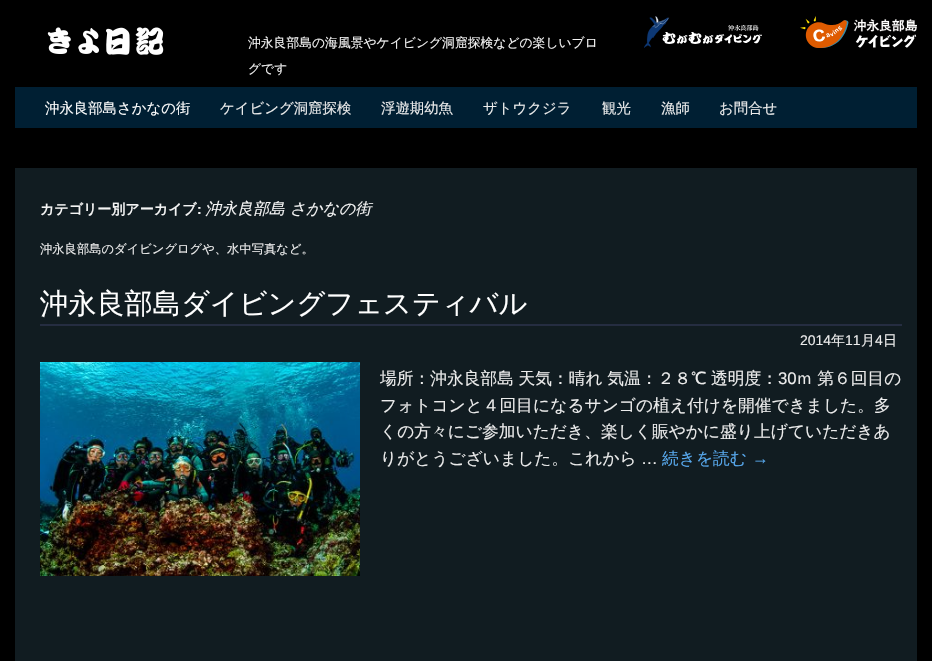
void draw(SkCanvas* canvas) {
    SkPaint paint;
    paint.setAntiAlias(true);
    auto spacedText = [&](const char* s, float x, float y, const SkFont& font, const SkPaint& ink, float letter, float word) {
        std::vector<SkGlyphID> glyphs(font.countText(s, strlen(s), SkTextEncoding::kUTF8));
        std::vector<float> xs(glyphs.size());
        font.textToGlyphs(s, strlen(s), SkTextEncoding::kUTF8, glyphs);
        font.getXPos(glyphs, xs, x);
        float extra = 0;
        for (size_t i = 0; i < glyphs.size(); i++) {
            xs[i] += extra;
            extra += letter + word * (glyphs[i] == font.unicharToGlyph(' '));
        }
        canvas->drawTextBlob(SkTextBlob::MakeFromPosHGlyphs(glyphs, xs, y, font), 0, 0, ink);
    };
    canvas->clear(0xFF000000);
    canvas->drawImageRect(SkImages::DeferredFromEncodedData(SkData::MakeFromFileName("img1.png")), SkRect::MakeXYWH(47, 27, 117, 28), SkSamplingOptions());
    SkFont font1(fontMgr->matchFamilyStyle("WenQuanYi Zen Hei", SkFontStyle(500, SkFontStyle::kNormal_Width, SkFontStyle::kUpright_Slant)), 12.8f);
    font1.setSubpixel(true);
    paint.setColor(0xFFF4F4F4);
    canvas->drawString("沖永良部島の海風景やケイビング洞窟探検などの楽しいブロ", 248, 47, font1, paint);
    canvas->drawString("グです", 248, 73, font1, paint);
    canvas->drawImageRect(SkImages::DeferredFromEncodedData(SkData::MakeFromFileName("img2.png")), SkRect::MakeXYWH(644, 16, 118, 32), SkSamplingOptions());
    canvas->drawImageRect(SkImages::DeferredFromEncodedData(SkData::MakeFromFileName("img3.png")), SkRect::MakeXYWH(800, 16, 117, 32), SkSamplingOptions());
    paint.setColor(0xFF001F33);
    canvas->drawRect(SkRect::MakeXYWH(15, 87, 902, 41), paint);
    SkFont font2(fontMgr->matchFamilyStyle("WenQuanYi Zen Hei", SkFontStyle(500, SkFontStyle::kNormal_Width, SkFontStyle::kUpright_Slant)), 14.4f);
    font2.setSubpixel(true);
    paint.setColor(0xFFFFFFFF);
    canvas->drawString("沖永良部島さかなの街", 45, 113, font2, paint);
    paint.setColor(0xFFECECEC);
    canvas->drawString("ケイビング洞窟探検", 220, 113, font2, paint);
    canvas->drawString("浮遊期幼魚", 381, 113, font2, paint);
    canvas->drawString("ザトウクジラ", 483, 113, font2, paint);
    canvas->drawString("観光", 602, 113, font2, paint);
    canvas->drawString("漁師", 661, 113, font2, paint);
    canvas->drawString("お問合せ", 719, 113, font2, paint);
    paint.setColor(0xFF111C21);
    canvas->drawRect(SkRect::MakeXYWH(15, 168, 902, 493), paint);
    SkFont font3(fontMgr->matchFamilyStyle("WenQuanYi Zen Hei", SkFontStyle::Bold()), 14);
    font3.setSubpixel(true);
    paint.setColor(0xFFF4F4F4);
    canvas->drawString("カテゴリー別アーカイブ", 40, 214, font3, paint);
    SkFont font4(fontMgr->matchFamilyStyle("Liberation Sans", SkFontStyle::Bold()), 14);
    font4.setSubpixel(true);
    canvas->drawString(":", 197, 214, font4, paint);
    SkFont font5(fontMgr->matchFamilyStyle("WenQuanYi Zen Hei", SkFontStyle(500, SkFontStyle::kNormal_Width, SkFontStyle::kItalic_Slant)), 16);
    font5.setSubpixel(true);
    canvas->drawString("沖永良部島 さかなの街", 205, 214, font5, paint);
    SkFont font6(fontMgr->matchFamilyStyle("WenQuanYi Zen Hei", SkFontStyle(500, SkFontStyle::kNormal_Width, SkFontStyle::kUpright_Slant)), 12.3f);
    font6.setSubpixel(true);
    paint.setColor(0xFFECECEC);
    canvas->drawString("沖永良部島のダイビングログや、水中写真など。", 40, 253, font6, paint);
    paint.setColor(0xFF252D41);
    canvas->drawRect(SkRect::MakeXYWH(40, 324, 862, 2), paint);
    SkFont font7(fontMgr->matchFamilyStyle("WenQuanYi Zen Hei", SkFontStyle(500, SkFontStyle::kNormal_Width, SkFontStyle::kUpright_Slant)), 28.2f);
    font7.setSubpixel(true);
    paint.setColor(0xFFFFFFFF);
    canvas->drawString("沖永良部島ダイビングフェスティバル", 40, 313, font7, paint);
    SkFont font8(fontMgr->matchFamilyStyle("Liberation Sans", SkFontStyle::Normal()), 14);
    font8.setSubpixel(true);
    paint.setColor(0xFFECECEC);
    canvas->drawString("2014", 800, 345, font8, paint);
    SkFont font9(fontMgr->matchFamilyStyle("WenQuanYi Zen Hei", SkFontStyle(500, SkFontStyle::kNormal_Width, SkFontStyle::kUpright_Slant)), 14);
    font9.setSubpixel(true);
    canvas->drawString("年", 831, 345, font9, paint);
    canvas->drawString("11", 845, 345, font8, paint);
    canvas->drawString("月", 861, 345, font9, paint);
    canvas->drawString("4", 875, 345, font8, paint);
    canvas->drawString("日", 883, 345, font9, paint);
    canvas->drawImageRect(SkImages::DeferredFromEncodedData(SkData::MakeFromFileName("img4.png")), SkRect::MakeXYWH(40, 362, 320, 214), SkSamplingOptions());
    SkFont font10(fontMgr->matchFamilyStyle("WenQuanYi Zen Hei", SkFontStyle(500, SkFontStyle::kNormal_Width, SkFontStyle::kUpright_Slant)), 16.75f);
    font10.setSubpixel(true);
    spacedText("場所：沖永良部島 天気：晴れ 気温：２８℃ 透明度：", 380, 384, font10, paint, 0, -0.5f);
    SkFont font11(fontMgr->matchFamilyStyle("Liberation Sans", SkFontStyle::Normal()), 16.75f);
    font11.setSubpixel(true);
    canvas->drawString("30", 778, 384, font11, paint);
    spacedText("ｍ 第６回目の", 796, 384, font10, paint, 0, -0.5f);
    canvas->drawString("フォトコンと４回目になるサンゴの植え付けを開催できました。多", 380, 411, font10, paint);
    canvas->drawString("くの方々にご参加いただき、楽しく賑やかに盛り上げていただきあ", 380, 437, font10, paint);
    canvas->drawString("りがとうございました。これから", 380, 464, font10, paint);
    canvas->drawString("…", 641, 464, font11, paint);
    paint.setColor(0xFF57A8ED);
    canvas->drawString("続きを読む", 662, 464, font10, paint);
    canvas->drawString("→", 752, 464, font11, paint);
}
